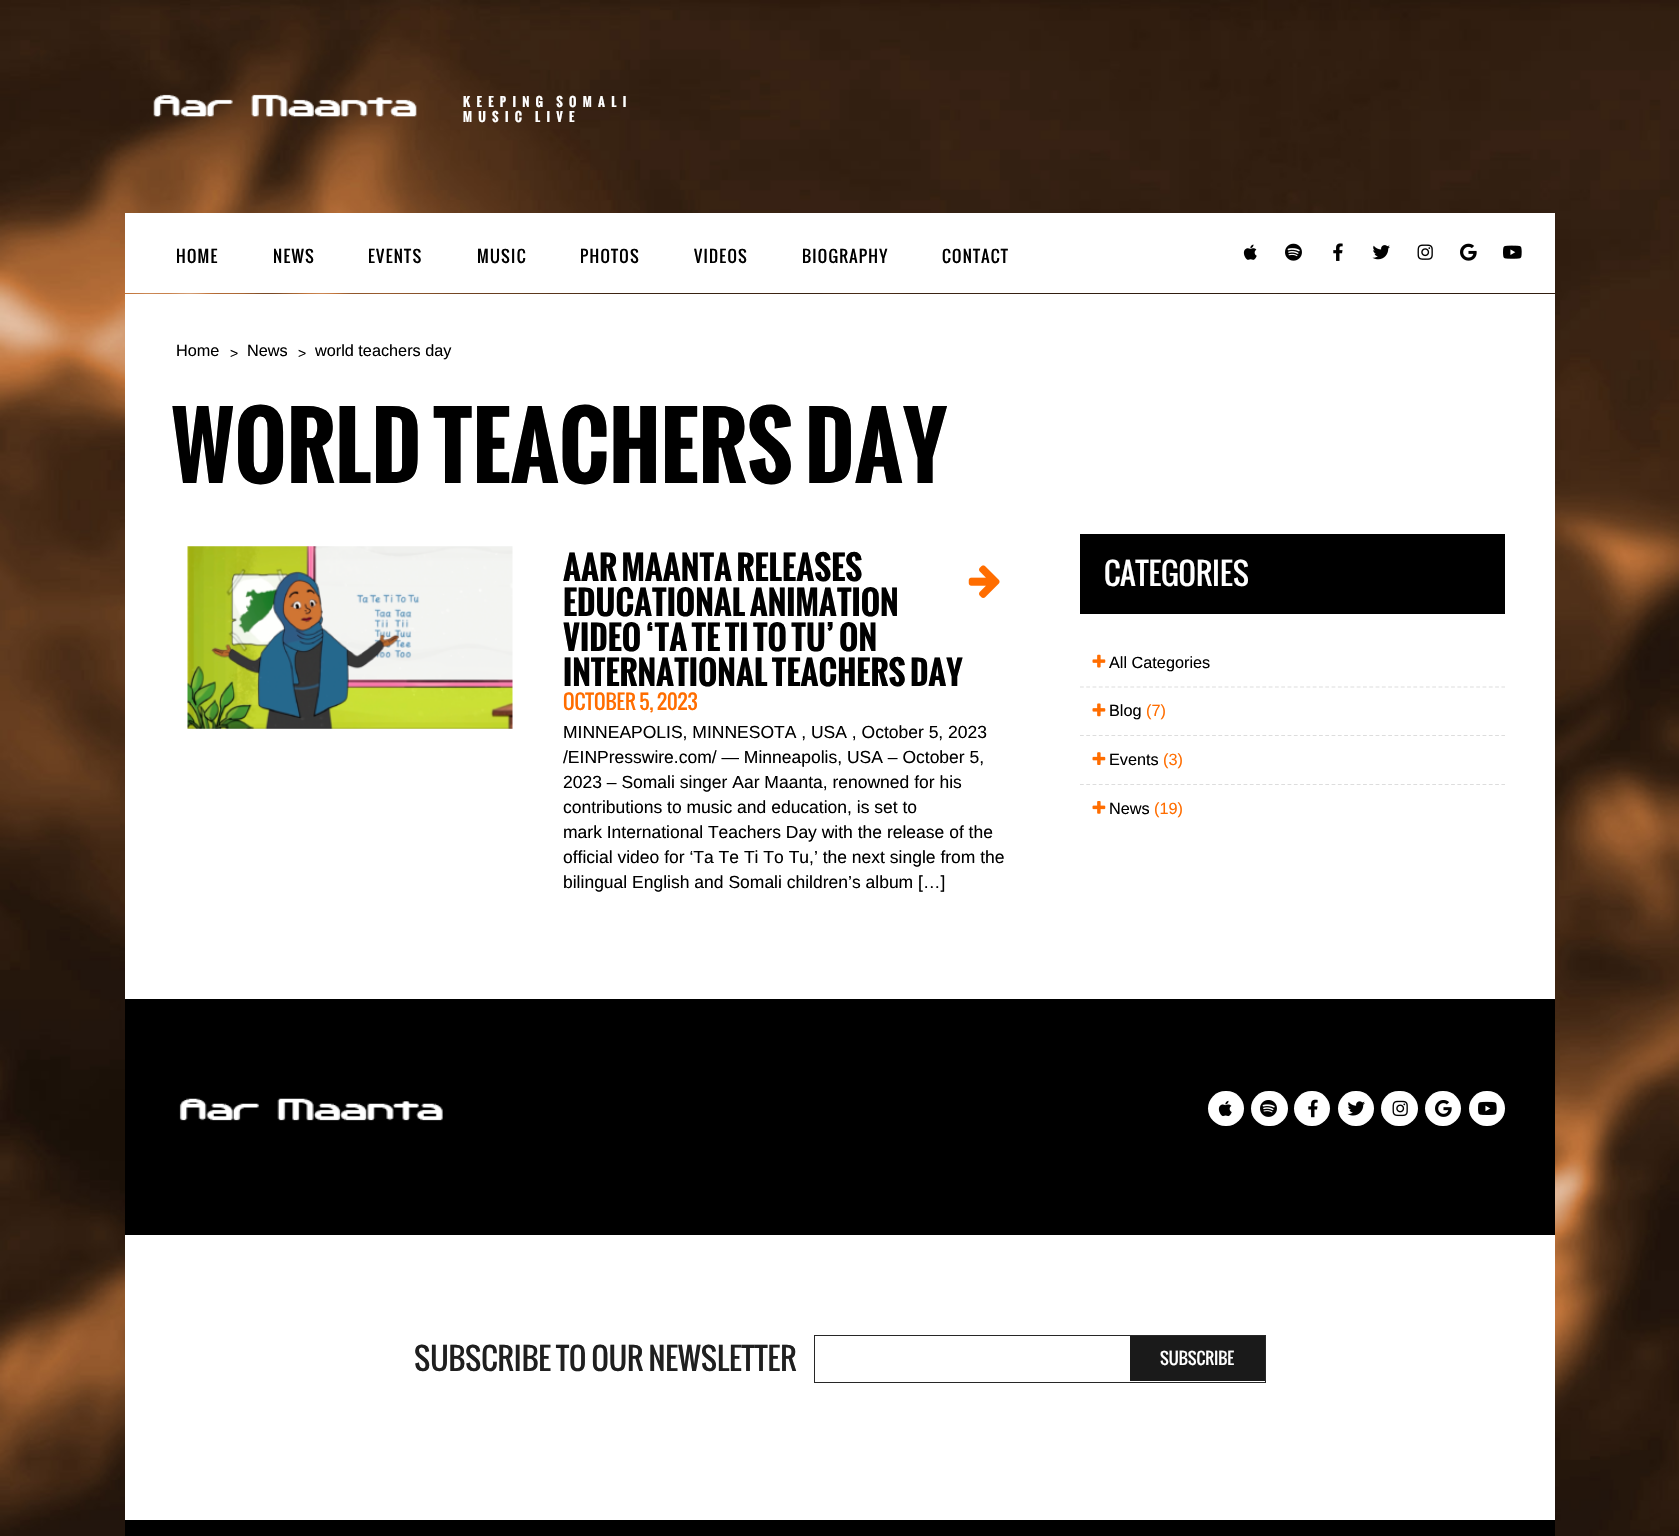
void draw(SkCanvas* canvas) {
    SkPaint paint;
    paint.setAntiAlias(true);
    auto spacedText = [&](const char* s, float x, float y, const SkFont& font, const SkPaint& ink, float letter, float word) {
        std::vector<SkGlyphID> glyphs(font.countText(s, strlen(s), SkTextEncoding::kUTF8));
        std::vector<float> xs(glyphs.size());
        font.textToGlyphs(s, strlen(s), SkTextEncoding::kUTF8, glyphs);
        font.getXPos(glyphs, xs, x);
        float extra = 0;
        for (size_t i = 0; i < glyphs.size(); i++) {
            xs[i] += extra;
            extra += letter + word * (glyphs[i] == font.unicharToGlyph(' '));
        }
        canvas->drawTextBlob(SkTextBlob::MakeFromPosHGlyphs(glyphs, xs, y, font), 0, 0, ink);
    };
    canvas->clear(0xFFFFFFFF);
    canvas->drawImageRect(SkImages::DeferredFromEncodedData(SkData::MakeFromFileName("img1.png")), SkRect::MakeXYWH(0, 0, 1679, 1536), SkSamplingOptions());
    canvas->drawImageRect(SkImages::DeferredFromEncodedData(SkData::MakeFromFileName("img2.png")), SkRect::MakeXYWH(153, 94, 264, 23), SkSamplingOptions());
    SkFont font1(fontMgr->matchFamilyStyle("Oswald", SkFontStyle::Bold()), 12.5f);
    font1.setSubpixel(true);
    paint.setColor(0xFFFFFFFF);
    spacedText("KEEPING SOMALI", 463, 107, font1, paint, 6.25f, -1);
    spacedText("MUSIC LIVE", 463, 122, font1, paint, 6.25f, -1);
    canvas->drawRect(SkRect::MakeXYWH(125, 213, 1430, 80), paint);
    SkFont font2(fontMgr->matchFamilyStyle("Oswald", SkFontStyle::Normal()), 16.25f);
    font2.setSubpixel(true);
    paint.setColor(0xFF000000);
    spacedText("HOME", 176, 263, font2, paint, 1.25f, 0);
    spacedText("NEWS", 273, 263, font2, paint, 1.25f, 0);
    spacedText("EVENTS", 368, 263, font2, paint, 1.25f, 0);
    spacedText("MUSIC", 477, 263, font2, paint, 1.25f, 0);
    spacedText("PHOTOS", 580, 263, font2, paint, 1.25f, 0);
    spacedText("VIDEOS", 694, 263, font2, paint, 1.25f, 0);
    spacedText("BIOGRAPHY", 802, 263, font2, paint, 1.25f, 0);
    spacedText("CONTACT", 942, 263, font2, paint, 1.25f, 0);
    canvas->drawImageRect(SkImages::DeferredFromEncodedData(SkData::MakeFromFileName("img3.png")), SkRect::MakeXYWH(1243, 244, 14, 16), SkSamplingOptions());
    canvas->drawImageRect(SkImages::DeferredFromEncodedData(SkData::MakeFromFileName("img4.png")), SkRect::MakeXYWH(1285, 243, 17, 18), SkSamplingOptions());
    canvas->drawImageRect(SkImages::DeferredFromEncodedData(SkData::MakeFromFileName("img5.png")), SkRect::MakeXYWH(1333, 243, 10, 18), SkSamplingOptions());
    canvas->drawImageRect(SkImages::DeferredFromEncodedData(SkData::MakeFromFileName("img6.png")), SkRect::MakeXYWH(1372, 245, 18, 15), SkSamplingOptions());
    canvas->drawImageRect(SkImages::DeferredFromEncodedData(SkData::MakeFromFileName("img7.png")), SkRect::MakeXYWH(1417, 244, 16, 16), SkSamplingOptions());
    canvas->drawImageRect(SkImages::DeferredFromEncodedData(SkData::MakeFromFileName("img8.png")), SkRect::MakeXYWH(1460, 243, 17, 18), SkSamplingOptions());
    canvas->drawImageRect(SkImages::DeferredFromEncodedData(SkData::MakeFromFileName("img9.png")), SkRect::MakeXYWH(1503, 245, 19, 14), SkSamplingOptions());
    paint.setColor(0xFFFFFFFF);
    canvas->drawRect(SkRect::MakeXYWH(125, 294, 1430, 705), paint);
    SkFont font3(fontMgr->matchFamilyStyle("Liberation Sans", SkFontStyle::Normal()), 16.25f);
    font3.setSubpixel(true);
    paint.setColor(0xFF000000);
    canvas->drawString("Home", 176, 356, font3, paint);
    SkFont font4(fontMgr->matchFamilyStyle("Liberation Sans", SkFontStyle::Normal()), 14);
    font4.setSubpixel(true);
    canvas->drawString(">", 230, 358, font4, paint);
    canvas->drawString("News", 247, 356, font3, paint);
    canvas->drawString(">", 298, 358, font4, paint);
    canvas->drawString("world teachers day", 315, 356, font3, paint);
    SkFont font5(fontMgr->matchFamilyStyle("Oswald", SkFontStyle::Bold()), 87.5f);
    font5.setSubpixel(true);
    canvas->drawString("WORLD TEACHERS DAY", 171, 483, font5, paint);
    canvas->drawImageRect(SkImages::DeferredFromEncodedData(SkData::MakeFromFileName("img10.png")), SkRect::MakeXYWH(187, 546, 326, 183), SkSamplingOptions());
    SkFont font6(fontMgr->matchFamilyStyle("Oswald", SkFontStyle::Bold()), 32.5f);
    font6.setSubpixel(true);
    canvas->drawString("AAR MAANTA RELEASES", 563, 581, font6, paint);
    canvas->drawString("EDUCATIONAL ANIMATION", 563, 616, font6, paint);
    canvas->drawString("VIDEO ‘TA TE TI TO TU’ ON", 563, 651, font6, paint);
    canvas->drawString("INTERNATIONAL TEACHERS DAY", 563, 686, font6, paint);
    canvas->drawImageRect(SkImages::DeferredFromEncodedData(SkData::MakeFromFileName("img11.png")), SkRect::MakeXYWH(968, 565, 32, 33), SkSamplingOptions());
    SkFont font7(fontMgr->matchFamilyStyle("Oswald", SkFontStyle::Normal()), 20);
    font7.setSubpixel(true);
    paint.setColor(0xFFFF6D00);
    canvas->drawString("OCTOBER 5, 2023", 563, 710, font7, paint);
    SkFont font8(fontMgr->matchFamilyStyle("Liberation Sans", SkFontStyle::Normal()), 17.5f);
    font8.setSubpixel(true);
    paint.setColor(0xFF000000);
    canvas->drawString("MINNEAPOLIS, MINNESOTA , USA , October 5, 2023", 563, 738, font8, paint);
    canvas->drawString("/EINPresswire.com/ — Minneapolis, USA – October 5,", 563, 763, font8, paint);
    canvas->drawString("2023 – Somali singer Aar Maanta, renowned for his", 563, 788, font8, paint);
    canvas->drawString("contributions to music and education, is set to", 563, 813, font8, paint);
    canvas->drawString("mark International Teachers Day with the release of the", 563, 838, font8, paint);
    canvas->drawString("official video for ‘Ta Te Ti To Tu,’ the next single from the", 563, 863, font8, paint);
    canvas->drawString("bilingual English and Somali children’s album […]", 563, 888, font8, paint);
    canvas->drawRect(SkRect::MakeXYWH(1080, 534, 425, 80), paint);
    SkFont font9(fontMgr->matchFamilyStyle("Oswald", SkFontStyle::Normal()), 30);
    font9.setSubpixel(true);
    paint.setColor(0xFFFFFFFF);
    canvas->drawString("CATEGORIES", 1104, 586, font9, paint);
    paint.setStyle(SkPaint::kStroke_Style);
    paint.setStrokeWidth(1.2f);
    paint.setColor(0xFFDDDDDD);
    paint.setPathEffect(SkDashPathEffect::Make({{3.75f, 2.54f}}, 0));
    canvas->drawPath(SkPathBuilder().moveTo(1080, 687).lineTo(1505, 687).detach(), paint);
    paint.setPathEffect(nullptr);
    canvas->drawImageRect(SkImages::DeferredFromEncodedData(SkData::MakeFromFileName("img12.png")), SkRect::MakeXYWH(1092, 654, 14, 14), SkSamplingOptions());
    paint.setStyle(SkPaint::kFill_Style);
    paint.setColor(0xFF000000);
    canvas->drawString("All Categories", 1109, 668, font3, paint);
    paint.setStyle(SkPaint::kStroke_Style);
    paint.setColor(0xFFDDDDDD);
    paint.setPathEffect(SkDashPathEffect::Make({{3.75f, 2.54f}}, 0));
    canvas->drawPath(SkPathBuilder().moveTo(1080, 735.5f).lineTo(1505, 735.5f).detach(), paint);
    paint.setPathEffect(nullptr);
    canvas->drawImageRect(SkImages::DeferredFromEncodedData(SkData::MakeFromFileName("img13.png")), SkRect::MakeXYWH(1092, 703, 14, 14), SkSamplingOptions());
    paint.setStyle(SkPaint::kFill_Style);
    paint.setColor(0xFF000000);
    canvas->drawString("Blog", 1109, 716, font3, paint);
    paint.setColor(0xFFFF6D00);
    canvas->drawString("(7)", 1146, 716, font3, paint);
    paint.setStyle(SkPaint::kStroke_Style);
    paint.setColor(0xFFDDDDDD);
    paint.setPathEffect(SkDashPathEffect::Make({{3.75f, 2.54f}}, 0));
    canvas->drawPath(SkPathBuilder().moveTo(1080, 784.5f).lineTo(1505, 784.5f).detach(), paint);
    paint.setPathEffect(nullptr);
    canvas->drawImageRect(SkImages::DeferredFromEncodedData(SkData::MakeFromFileName("img14.png")), SkRect::MakeXYWH(1092, 752, 14, 13), SkSamplingOptions());
    paint.setStyle(SkPaint::kFill_Style);
    paint.setColor(0xFF000000);
    canvas->drawString("Events", 1109, 765, font3, paint);
    paint.setColor(0xFFFF6D00);
    canvas->drawString("(3)", 1163, 765, font3, paint);
    canvas->drawImageRect(SkImages::DeferredFromEncodedData(SkData::MakeFromFileName("img15.png")), SkRect::MakeXYWH(1092, 801, 14, 13), SkSamplingOptions());
    paint.setColor(0xFF000000);
    canvas->drawString("News", 1109, 814, font3, paint);
    paint.setColor(0xFFFF6D00);
    canvas->drawString("(19)", 1154, 814, font3, paint);
    paint.setColor(0xFF000000);
    canvas->drawRect(SkRect::MakeXYWH(125, 999, 1430, 537), paint);
    canvas->drawImageRect(SkImages::DeferredFromEncodedData(SkData::MakeFromFileName("img16.png")), SkRect::MakeXYWH(179, 1098, 264, 23), SkSamplingOptions());
    paint.setColor(0xFFFFFFFF);
    canvas->drawRoundRect(SkRect::MakeXYWH(1208, 1091, 36, 35), 17.5f, 17.5f, paint);
    canvas->drawImageRect(SkImages::DeferredFromEncodedData(SkData::MakeFromFileName("img17.png")), SkRect::MakeXYWH(1218, 1100, 14, 17), SkSamplingOptions());
    canvas->drawRoundRect(SkRect::MakeXYWH(1251, 1091, 37, 35), 17.5f, 17.5f, paint);
    canvas->drawImageRect(SkImages::DeferredFromEncodedData(SkData::MakeFromFileName("img18.png")), SkRect::MakeXYWH(1260, 1100, 17, 17), SkSamplingOptions());
    canvas->drawRoundRect(SkRect::MakeXYWH(1294, 1091, 36, 35), 17.5f, 17.5f, paint);
    canvas->drawImageRect(SkImages::DeferredFromEncodedData(SkData::MakeFromFileName("img19.png")), SkRect::MakeXYWH(1308, 1099, 10, 19), SkSamplingOptions());
    canvas->drawRoundRect(SkRect::MakeXYWH(1338, 1091, 36, 35), 17.5f, 17.5f, paint);
    canvas->drawImageRect(SkImages::DeferredFromEncodedData(SkData::MakeFromFileName("img20.png")), SkRect::MakeXYWH(1347, 1101, 18, 15), SkSamplingOptions());
    canvas->drawRoundRect(SkRect::MakeXYWH(1381, 1091, 37, 35), 17.5f, 17.5f, paint);
    canvas->drawImageRect(SkImages::DeferredFromEncodedData(SkData::MakeFromFileName("img21.png")), SkRect::MakeXYWH(1392, 1100, 16, 17), SkSamplingOptions());
    canvas->drawRoundRect(SkRect::MakeXYWH(1425, 1091, 36, 35), 17.5f, 17.5f, paint);
    canvas->drawImageRect(SkImages::DeferredFromEncodedData(SkData::MakeFromFileName("img22.png")), SkRect::MakeXYWH(1435, 1100, 17, 17), SkSamplingOptions());
    canvas->drawRoundRect(SkRect::MakeXYWH(1469, 1091, 36, 35), 17.5f, 17.5f, paint);
    canvas->drawImageRect(SkImages::DeferredFromEncodedData(SkData::MakeFromFileName("img23.png")), SkRect::MakeXYWH(1478, 1101, 19, 14), SkSamplingOptions());
    canvas->drawRect(SkRect::MakeXYWH(125, 1235, 1430, 285), paint);
    paint.setColor(0xFF1F1F1F);
    canvas->drawString("SUBSCRIBE TO OUR NEWSLETTER", 414, 1371, font9, paint);
    paint.setStyle(SkPaint::kStroke_Style);
    paint.setStrokeWidth(1);
    paint.setColor(0xFF272727);
    canvas->drawRect(SkRect::MakeXYWH(814.5f, 1335.5f, 451, 47), paint);
    paint.setStyle(SkPaint::kFill_Style);
    paint.setColor(0xFF1A1A1A);
    canvas->drawRect(SkRect::MakeXYWH(1130, 1336, 135, 45), paint);
    paint.setColor(0xFFFFFFFF);
    canvas->drawString("SUBSCRIBE", 1160, 1365, font2, paint);
}
